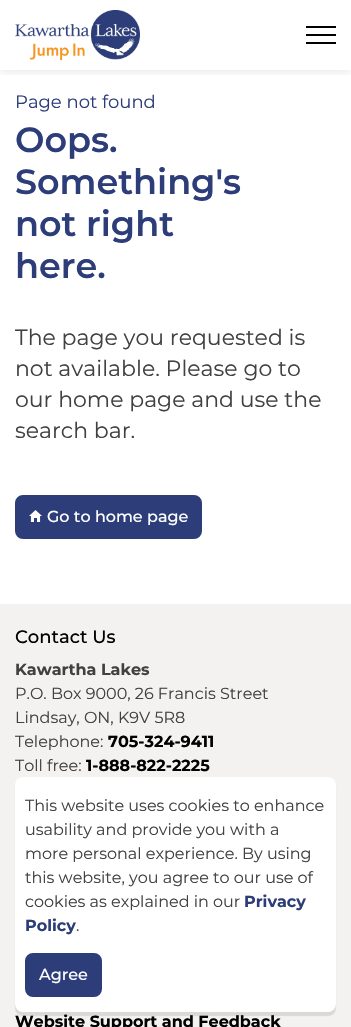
void draw(SkCanvas* canvas) {
    SkPaint paint;
    paint.setAntiAlias(true);
    canvas->clear(0xFFFFFFFF);
    canvas->save();
    canvas->clipRect(SkRect::MakeXYWH(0, 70, 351, 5));
    paint.setColor(0x1A000000);
    paint.setMaskFilter(SkMaskFilter::MakeBlur(kNormal_SkBlurStyle, 5));
    canvas->drawRect(SkRect::MakeXYWH(0, 1, 351, 70), paint);
    paint.setMaskFilter(nullptr);
    canvas->restore();
    canvas->drawImageRect(SkImages::DeferredFromEncodedData(SkData::MakeFromFileName("img1.png")), SkRect::MakeXYWH(15, 10, 125, 50), SkSamplingOptions());
    paint.setColor(0xFF000000);
    canvas->drawRect(SkRect::MakeXYWH(306, 34, 30, 2), paint);
    canvas->drawRect(SkRect::MakeXYWH(306, 26, 30, 2), paint);
    canvas->drawRect(SkRect::MakeXYWH(306, 42, 30, 2), paint);
    SkFont font1(fontMgr->matchFamilyStyle("Montserrat", SkFontStyle::Normal()), 18);
    font1.setSubpixel(true);
    paint.setColor(0xFF2C3D7A);
    canvas->drawString("Page not found", 15, 108, font1, paint);
    SkFont font2(fontMgr->matchFamilyStyle("Montserrat", SkFontStyle(600, SkFontStyle::kNormal_Width, SkFontStyle::kUpright_Slant)), 35);
    font2.setSubpixel(true);
    canvas->drawString("Oops.", 15, 152, font2, paint);
    canvas->drawString("Something's", 15, 194, font2, paint);
    canvas->drawString("not right", 15, 236, font2, paint);
    canvas->drawString("here.", 15, 278, font2, paint);
    SkFont font3(fontMgr->matchFamilyStyle("Montserrat", SkFontStyle::Normal()), 22);
    font3.setSubpixel(true);
    paint.setColor(0xFF414141);
    canvas->drawString("The page you requested is", 15, 345, font3, paint);
    canvas->drawString("not available. Please go to", 15, 376, font3, paint);
    canvas->drawString("our home page and use the", 15, 407, font3, paint);
    canvas->drawString("search bar.", 15, 438, font3, paint);
    paint.setColor(0xFF2C3D7A);
    canvas->drawRoundRect(SkRect::MakeXYWH(16, 496, 185, 42), 7, 7, paint);
    paint.setStyle(SkPaint::kStroke_Style);
    paint.setStrokeWidth(2);
    canvas->drawRoundRect(SkRect::MakeXYWH(16, 496, 185, 42), 7, 7, paint);
    canvas->drawImageRect(SkImages::DeferredFromEncodedData(SkData::MakeFromFileName("img2.png")), SkRect::MakeXYWH(29, 510, 13, 12), SkSamplingOptions());
    SkFont font4(fontMgr->matchFamilyStyle("Montserrat", SkFontStyle(500, SkFontStyle::kNormal_Width, SkFontStyle::kUpright_Slant)), 16);
    font4.setSubpixel(true);
    paint.setStyle(SkPaint::kFill_Style);
    paint.setColor(0xFFFFFFFF);
    canvas->drawString("Go to home page", 47, 522, font4, paint);
    paint.setColor(0xFFF3F2F1);
    canvas->drawRect(SkRect::MakeXYWH(0, 604, 351, 423), paint);
    SkFont font5(fontMgr->matchFamilyStyle("Montserrat", SkFontStyle(500, SkFontStyle::kNormal_Width, SkFontStyle::kUpright_Slant)), 18);
    font5.setSubpixel(true);
    paint.setColor(0xFF000000);
    canvas->drawString("Contact Us", 15, 643, font5, paint);
    SkFont font6(fontMgr->matchFamilyStyle("Montserrat", SkFontStyle::Bold()), 16);
    font6.setSubpixel(true);
    paint.setColor(0xFF414141);
    canvas->drawString("Kawartha Lakes", 15, 675, font6, paint);
    SkFont font7(fontMgr->matchFamilyStyle("Montserrat", SkFontStyle::Normal()), 16);
    font7.setSubpixel(true);
    canvas->drawString("P.O. Box 9000, 26 Francis Street", 15, 699, font7, paint);
    canvas->drawString("Lindsay, ON, K9V 5R8", 15, 723, font7, paint);
    canvas->drawString("Telephone:", 15, 747, font7, paint);
    paint.setColor(0xFF000000);
    canvas->drawString("705-324-9411", 108, 747, font6, paint);
    paint.setColor(0xFF414141);
    canvas->drawString("Toll free:", 15, 771, font7, paint);
    paint.setColor(0xFF000000);
    canvas->drawString("1-888-822-2225", 86, 771, font6, paint);
    canvas->drawString("Website Support and Feedback", 15, 1027, font6, paint);
    paint.setColor(0x1A000000);
    paint.setMaskFilter(SkMaskFilter::MakeBlur(kNormal_SkBlurStyle, 0.5f));
    canvas->drawRoundRect(SkRect::MakeXYWH(15, 781, 321, 235), 8, 8, paint);
    paint.setMaskFilter(nullptr);
    paint.setColor(0xFFFFFFFF);
    canvas->drawRoundRect(SkRect::MakeXYWH(15, 777, 321, 235), 8, 8, paint);
    paint.setColor(0xFF414141);
    canvas->drawString("This website uses cookies to enhance", 25, 811, font7, paint);
    canvas->drawString("usability and provide you with a", 25, 835, font7, paint);
    canvas->drawString("more personal experience. By using", 25, 859, font7, paint);
    canvas->drawString("this website, you agree to our use of", 25, 883, font7, paint);
    canvas->drawString("cookies as explained in our", 25, 907, font7, paint);
    paint.setColor(0xFF2C3D7A);
    canvas->drawString("Privacy", 244, 907, font6, paint);
    canvas->drawString("Policy", 25, 931, font6, paint);
    paint.setColor(0xFF414141);
    canvas->drawString(".", 76, 931, font7, paint);
    paint.setColor(0xFF2C3D7A);
    canvas->drawRoundRect(SkRect::MakeXYWH(26, 954, 75, 42), 7, 7, paint);
    paint.setStyle(SkPaint::kStroke_Style);
    canvas->drawRoundRect(SkRect::MakeXYWH(26, 954, 75, 42), 7, 7, paint);
    paint.setStyle(SkPaint::kFill_Style);
    paint.setColor(0xFFFFFFFF);
    canvas->drawString("Agree", 39, 980, font4, paint);
}
